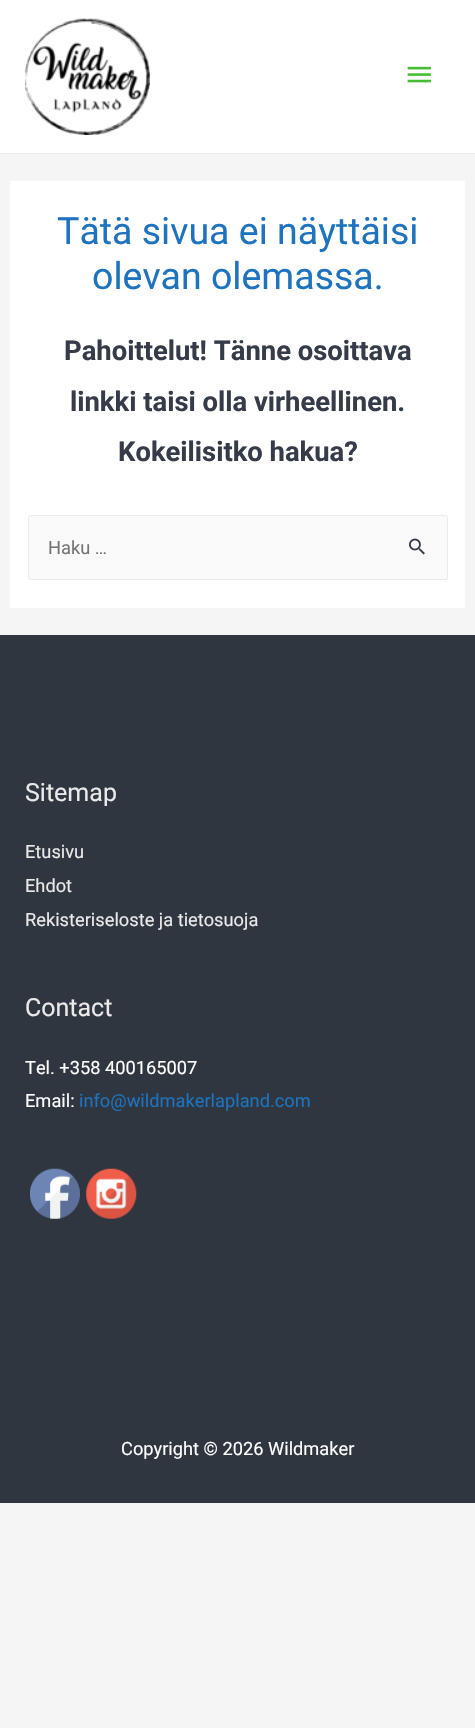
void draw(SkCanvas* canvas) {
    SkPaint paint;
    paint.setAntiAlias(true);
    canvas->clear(0xFFF5F5F5);
    paint.setColor(0xFFFFFFFF);
    canvas->drawRect(SkRect::MakeXYWH(0, 0, 475, 153), paint);
    paint.setColor(0xFFEAEAEA);
    canvas->drawRect(SkRect::MakeXYWH(0, 153, 475, 1), paint);
    canvas->drawImageRect(SkImages::DeferredFromEncodedData(SkData::MakeFromFileName("img1.png")), SkRect::MakeXYWH(25, 18, 125, 117), SkSamplingOptions());
    canvas->drawImageRect(SkImages::DeferredFromEncodedData(SkData::MakeFromFileName("img2.png")), SkRect::MakeXYWH(407, 66, 24, 17), SkSamplingOptions());
    paint.setColor(0xFFFFFFFF);
    canvas->drawRect(SkRect::MakeXYWH(10, 181, 455, 427), paint);
    SkFont font1(fontMgr->matchFamilyStyle("Roboto", SkFontStyle::Normal()), 37.5f);
    font1.setSubpixel(true);
    paint.setColor(0xFF1E73BE);
    canvas->drawString("Tätä sivua ei näyttäisi", 57, 244, font1, paint);
    canvas->drawString("olevan olemassa.", 92, 289, font1, paint);
    SkFont font2(fontMgr->matchFamilyStyle("Roboto", SkFontStyle::Bold()), 27.4f);
    font2.setSubpixel(true);
    paint.setColor(0xFF353B48);
    canvas->drawString("Pahoittelut! Tänne osoittava", 64, 360, font2, paint);
    canvas->drawString("linkki taisi olla virheellinen.", 70, 411, font2, paint);
    canvas->drawString("Kokeilisitko hakua?", 118, 461, font2, paint);
    paint.setColor(0xFFFAFAFA);
    canvas->drawRoundRect(SkRect::MakeXYWH(28.5f, 515.5f, 419, 64), 2, 2, paint);
    paint.setStyle(SkPaint::kStroke_Style);
    paint.setStrokeWidth(1);
    paint.setColor(0xFFEAEAEA);
    canvas->drawRoundRect(SkRect::MakeXYWH(28.5f, 515.5f, 419, 64), 2, 2, paint);
    SkFont font3(fontMgr->matchFamilyStyle("Roboto", SkFontStyle::Normal()), 18.25f);
    font3.setSubpixel(true);
    paint.setStyle(SkPaint::kFill_Style);
    paint.setColor(0xFF757575);
    canvas->drawString("Haku …", 48, 554, font3, paint);
    canvas->drawImageRect(SkImages::DeferredFromEncodedData(SkData::MakeFromFileName("img3.png")), SkRect::MakeXYWH(409, 538, 16, 17), SkSamplingOptions());
    paint.setColor(0xFF2F3640);
    canvas->drawRect(SkRect::MakeXYWH(0, 635, 475, 868), paint);
    SkFont font4(fontMgr->matchFamilyStyle("Roboto", SkFontStyle::Normal()), 25);
    font4.setSubpixel(true);
    paint.setColor(0xFFEAEAEA);
    canvas->drawString("Sitemap", 25, 801, font4, paint);
    canvas->drawString("Etusivu", 25, 858, font3, paint);
    canvas->drawString("Ehdot", 25, 892, font3, paint);
    canvas->drawString("Rekisteriseloste ja tietosuoja", 25, 926, font3, paint);
    canvas->drawString("Contact", 25, 1016, font4, paint);
    paint.setColor(0xFFFFFFFF);
    canvas->drawString("Tel. +358 400165007", 25, 1074, font3, paint);
    canvas->drawString("Email:", 25, 1107, font3, paint);
    paint.setColor(0xFF1E73BE);
    canvas->drawString("info@wildmakerlapland.com", 79, 1107, font3, paint);
    canvas->drawImageRect(SkImages::DeferredFromEncodedData(SkData::MakeFromFileName("img4.png")), SkRect::MakeXYWH(30, 1168, 50, 51), SkSamplingOptions());
    canvas->drawImageRect(SkImages::DeferredFromEncodedData(SkData::MakeFromFileName("img5.png")), SkRect::MakeXYWH(86, 1168, 51, 51), SkSamplingOptions());
    paint.setColor(0xFFFFFFFF);
    canvas->drawString("Copyright © 2026 Wildmaker", 121, 1455, font3, paint);
}
